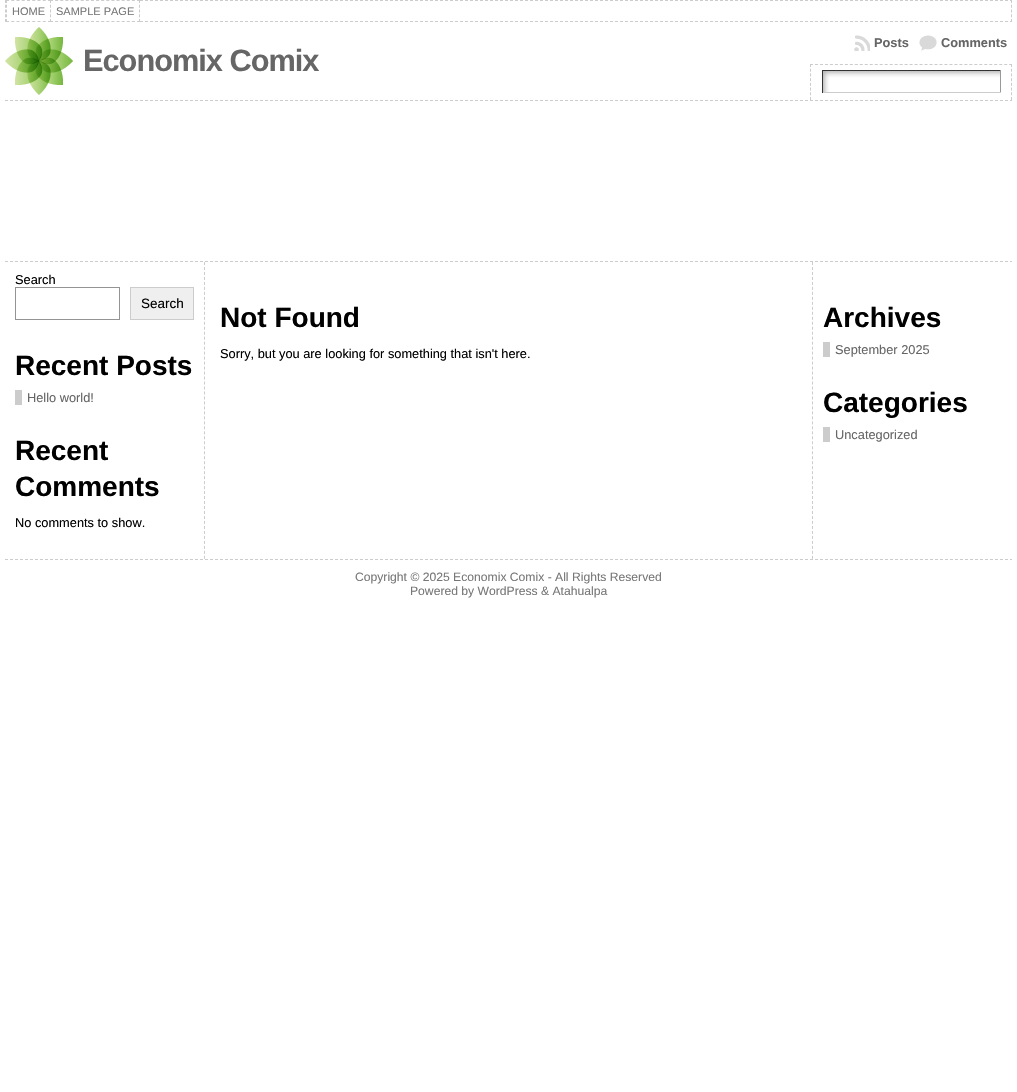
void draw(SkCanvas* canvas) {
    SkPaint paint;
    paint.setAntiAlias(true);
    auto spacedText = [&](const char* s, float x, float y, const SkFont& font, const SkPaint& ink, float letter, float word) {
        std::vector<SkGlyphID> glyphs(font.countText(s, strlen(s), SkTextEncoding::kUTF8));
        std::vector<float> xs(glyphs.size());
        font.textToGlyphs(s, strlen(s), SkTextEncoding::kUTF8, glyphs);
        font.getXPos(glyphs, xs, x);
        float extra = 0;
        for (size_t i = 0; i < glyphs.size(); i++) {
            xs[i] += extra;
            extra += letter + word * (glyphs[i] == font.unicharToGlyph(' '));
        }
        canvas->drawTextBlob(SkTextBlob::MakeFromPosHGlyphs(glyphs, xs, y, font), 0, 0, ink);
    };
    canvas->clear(0xFFFFFFFF);
    paint.setStyle(SkPaint::kStroke_Style);
    paint.setStrokeWidth(1);
    paint.setColor(0xFFCCCCCC);
    paint.setPathEffect(SkDashPathEffect::Make({{3, 2}}, 0));
    canvas->drawPath(SkPathBuilder().moveTo(5, 0.5f).lineTo(1012, 0.5f).detach(), paint);
    paint.setPathEffect(nullptr);
    paint.setPathEffect(SkDashPathEffect::Make({{3, 1.75f}}, 0));
    canvas->drawPath(SkPathBuilder().moveTo(1011.5f, 0).lineTo(1011.5f, 22).detach(), paint);
    paint.setPathEffect(nullptr);
    paint.setPathEffect(SkDashPathEffect::Make({{3, 2}}, 0));
    canvas->drawPath(SkPathBuilder().moveTo(5, 21.5f).lineTo(1012, 21.5f).detach(), paint);
    paint.setPathEffect(nullptr);
    paint.setPathEffect(SkDashPathEffect::Make({{3, 1.75f}}, 0));
    canvas->drawPath(SkPathBuilder().moveTo(5.5f, 0).lineTo(5.5f, 22).detach(), paint);
    paint.setPathEffect(nullptr);
    paint.setStyle(SkPaint::kFill_Style);
    paint.setColor(0xFFFFFFFF);
    canvas->drawRect(SkRect::MakeXYWH(6, 0, 42, 22), paint);
    paint.setStyle(SkPaint::kStroke_Style);
    paint.setColor(0xFFCCCCCC);
    paint.setPathEffect(SkDashPathEffect::Make({{3, 2.25f}}, 0));
    canvas->drawPath(SkPathBuilder().moveTo(6, 0.5f).lineTo(51, 0.5f).moveTo(6, 21.5f).lineTo(51, 21.5f).detach(), paint);
    paint.setPathEffect(nullptr);
    paint.setPathEffect(SkDashPathEffect::Make({{3, 1.75f}}, 0));
    canvas->drawPath(SkPathBuilder().moveTo(6.5f, 0).lineTo(6.5f, 22).detach(), paint);
    paint.setPathEffect(nullptr);
    SkFont font1(fontMgr->matchFamilyStyle("Liberation Sans", SkFontStyle::Normal()), 11);
    font1.setSubpixel(true);
    paint.setStyle(SkPaint::kFill_Style);
    paint.setColor(0xFF777777);
    canvas->drawString("HOME", 12, 15, font1, paint);
    paint.setColor(0xFFFFFFFF);
    canvas->drawRect(SkRect::MakeXYWH(50, 0, 88, 22), paint);
    paint.setStyle(SkPaint::kStroke_Style);
    paint.setColor(0xFFCCCCCC);
    paint.setPathEffect(SkDashPathEffect::Make({{3, 2.12f}}, 0));
    canvas->drawPath(SkPathBuilder().moveTo(50, 0.5f).lineTo(140, 0.5f).detach(), paint);
    paint.setPathEffect(nullptr);
    paint.setPathEffect(SkDashPathEffect::Make({{3, 1.75f}}, 0));
    canvas->drawPath(SkPathBuilder().moveTo(139.5f, 0).lineTo(139.5f, 22).detach(), paint);
    paint.setPathEffect(nullptr);
    paint.setPathEffect(SkDashPathEffect::Make({{3, 2.12f}}, 0));
    canvas->drawPath(SkPathBuilder().moveTo(50, 21.5f).lineTo(140, 21.5f).detach(), paint);
    paint.setPathEffect(nullptr);
    paint.setPathEffect(SkDashPathEffect::Make({{3, 1.75f}}, 0));
    canvas->drawPath(SkPathBuilder().moveTo(50.5f, 0).lineTo(50.5f, 22).detach(), paint);
    paint.setPathEffect(nullptr);
    paint.setStyle(SkPaint::kFill_Style);
    paint.setColor(0xFF777777);
    canvas->drawString("SAMPLE PAGE", 56, 15, font1, paint);
    canvas->drawImageRect(SkImages::DeferredFromEncodedData(SkData::MakeFromFileName("img1.png")), SkRect::MakeXYWH(5, 27, 68, 68), SkSamplingOptions());
    canvas->drawImageRect(SkImages::DeferredFromEncodedData(SkData::MakeFromFileName("img2.png")), SkRect::MakeXYWH(854, 35, 16, 16), SkSamplingOptions());
    SkFont font2(fontMgr->matchFamilyStyle("Liberation Sans", SkFontStyle::Bold()), 12.8f);
    font2.setSubpixel(true);
    paint.setColor(0xFF666666);
    canvas->drawString("Posts", 874, 47, font2, paint);
    canvas->drawImageRect(SkImages::DeferredFromEncodedData(SkData::MakeFromFileName("img3.png")), SkRect::MakeXYWH(919, 35, 18, 16), SkSamplingOptions());
    canvas->drawString("Comments", 941, 47, font2, paint);
    SkFont font3(fontMgr->matchFamilyStyle("Liberation Sans", SkFontStyle::Bold()), 30.75f);
    font3.setSubpixel(true);
    spacedText("Economix Comix", 83, 71, font3, paint, -1, 0);
    paint.setStyle(SkPaint::kStroke_Style);
    paint.setColor(0xFFCCCCCC);
    paint.setPathEffect(SkDashPathEffect::Make({{3, 1.98f}}, 0));
    canvas->drawPath(SkPathBuilder().moveTo(810, 64.5f).lineTo(1012, 64.5f).detach(), paint);
    paint.setPathEffect(nullptr);
    paint.setPathEffect(SkDashPathEffect::Make({{3, 1.71f}}, 0));
    canvas->drawPath(SkPathBuilder().moveTo(1011.5f, 64).lineTo(1011.5f, 100).detach(), paint);
    paint.setPathEffect(nullptr);
    paint.setPathEffect(SkDashPathEffect::Make({{3, 1.71f}}, 0));
    canvas->drawPath(SkPathBuilder().moveTo(810.5f, 64).lineTo(810.5f, 100).detach(), paint);
    paint.setPathEffect(nullptr);
    canvas->drawImageRect(SkImages::DeferredFromEncodedData(SkData::MakeFromFileName("img4.png")), SkRect::MakeXYWH(823, 71, 177, 21), SkSamplingOptions());
    paint.setStyle(SkPaint::kFill_Style);
    paint.setColor(0xFF333333);
    canvas->drawRect(SkRect::MakeXYWH(822, 70, 179, 1), paint);
    paint.setColor(0xFF999999);
    canvas->drawRect(SkRect::MakeXYWH(1000, 70, 1, 23), paint);
    paint.setColor(0xFFCCCCCC);
    canvas->drawRect(SkRect::MakeXYWH(822, 92, 179, 1), paint);
    paint.setColor(0xFF333333);
    canvas->drawRect(SkRect::MakeXYWH(822, 70, 1, 23), paint);
    paint.setStyle(SkPaint::kStroke_Style);
    paint.setColor(0xFFCCCCCC);
    paint.setPathEffect(SkDashPathEffect::Make({{3, 2}}, 0));
    canvas->drawPath(SkPathBuilder().moveTo(5, 100.5f).lineTo(1012, 100.5f).detach(), paint);
    paint.setPathEffect(nullptr);
    paint.setPathEffect(SkDashPathEffect::Make({{3, 2}}, 0));
    canvas->drawPath(SkPathBuilder().moveTo(5, 261.5f).lineTo(1012, 261.5f).detach(), paint);
    paint.setPathEffect(nullptr);
    paint.setPathEffect(SkDashPathEffect::Make({{3, 1.98f}}, 0));
    canvas->drawPath(SkPathBuilder().moveTo(204.5f, 262).lineTo(204.5f, 559).detach(), paint);
    paint.setPathEffect(nullptr);
    SkFont font4(fontMgr->matchFamilyStyle("Liberation Sans", SkFontStyle::Normal()), 12.8f);
    font4.setSubpixel(true);
    paint.setStyle(SkPaint::kFill_Style);
    paint.setColor(0xFF000000);
    canvas->drawString("Search", 15, 284, font4, paint);
    paint.setStyle(SkPaint::kStroke_Style);
    paint.setColor(0xFF949494);
    canvas->drawRect(SkRect::MakeXYWH(15.5f, 287.5f, 104, 32), paint);
    paint.setStyle(SkPaint::kFill_Style);
    paint.setColor(0xFFEFEFEF);
    canvas->drawRect(SkRect::MakeXYWH(130.5f, 287.5f, 63, 32), paint);
    paint.setStyle(SkPaint::kStroke_Style);
    paint.setColor(0xFFCCCCCC);
    canvas->drawRect(SkRect::MakeXYWH(130.5f, 287.5f, 63, 32), paint);
    SkFont font5(fontMgr->matchFamilyStyle("Liberation Sans", SkFontStyle::Normal()), 13.5f);
    font5.setSubpixel(true);
    paint.setStyle(SkPaint::kFill_Style);
    paint.setColor(0xFF000000);
    canvas->drawString("Search", 141, 308, font5, paint);
    SkFont font6(fontMgr->matchFamilyStyle("Liberation Sans", SkFontStyle::Bold()), 28);
    font6.setSubpixel(true);
    canvas->drawString("Recent Posts", 15, 375, font6, paint);
    paint.setColor(0xFFCCCCCC);
    canvas->drawRect(SkRect::MakeXYWH(15, 390, 7, 15), paint);
    paint.setColor(0xFF666666);
    canvas->drawString("Hello world!", 27, 402, font4, paint);
    paint.setColor(0xFF000000);
    canvas->drawString("Recent", 15, 460, font6, paint);
    canvas->drawString("Comments", 15, 496, font6, paint);
    canvas->drawString("No comments to show.", 15, 527, font4, paint);
    canvas->drawString("Not Found", 220, 327, font6, paint);
    canvas->drawString("Sorry, but you are looking for something that isn't here.", 220, 358, font4, paint);
    paint.setStyle(SkPaint::kStroke_Style);
    paint.setColor(0xFFCCCCCC);
    paint.setPathEffect(SkDashPathEffect::Make({{3, 1.98f}}, 0));
    canvas->drawPath(SkPathBuilder().moveTo(812.5f, 262).lineTo(812.5f, 559).detach(), paint);
    paint.setPathEffect(nullptr);
    paint.setStyle(SkPaint::kFill_Style);
    paint.setColor(0xFF000000);
    canvas->drawString("Archives", 823, 327, font6, paint);
    paint.setColor(0xFFCCCCCC);
    canvas->drawRect(SkRect::MakeXYWH(823, 342, 7, 15), paint);
    paint.setColor(0xFF666666);
    canvas->drawString("September 2025", 835, 354, font4, paint);
    paint.setColor(0xFF000000);
    canvas->drawString("Categories", 823, 412, font6, paint);
    paint.setColor(0xFFCCCCCC);
    canvas->drawRect(SkRect::MakeXYWH(823, 427, 7, 15), paint);
    paint.setColor(0xFF666666);
    canvas->drawString("Uncategorized", 835, 439, font4, paint);
    paint.setStyle(SkPaint::kStroke_Style);
    paint.setColor(0xFFCCCCCC);
    paint.setPathEffect(SkDashPathEffect::Make({{3, 2}}, 0));
    canvas->drawPath(SkPathBuilder().moveTo(5, 559.5f).lineTo(1012, 559.5f).detach(), paint);
    paint.setPathEffect(nullptr);
    SkFont font7(fontMgr->matchFamilyStyle("Liberation Sans", SkFontStyle::Normal()), 12.15f);
    font7.setSubpixel(true);
    paint.setStyle(SkPaint::kFill_Style);
    paint.setColor(0xFF777777);
    canvas->drawString("Copyright © 2025 Economix Comix - All Rights Reserved", 355, 581, font7, paint);
    canvas->drawString("Powered by WordPress & Atahualpa", 410, 595, font7, paint);
}
